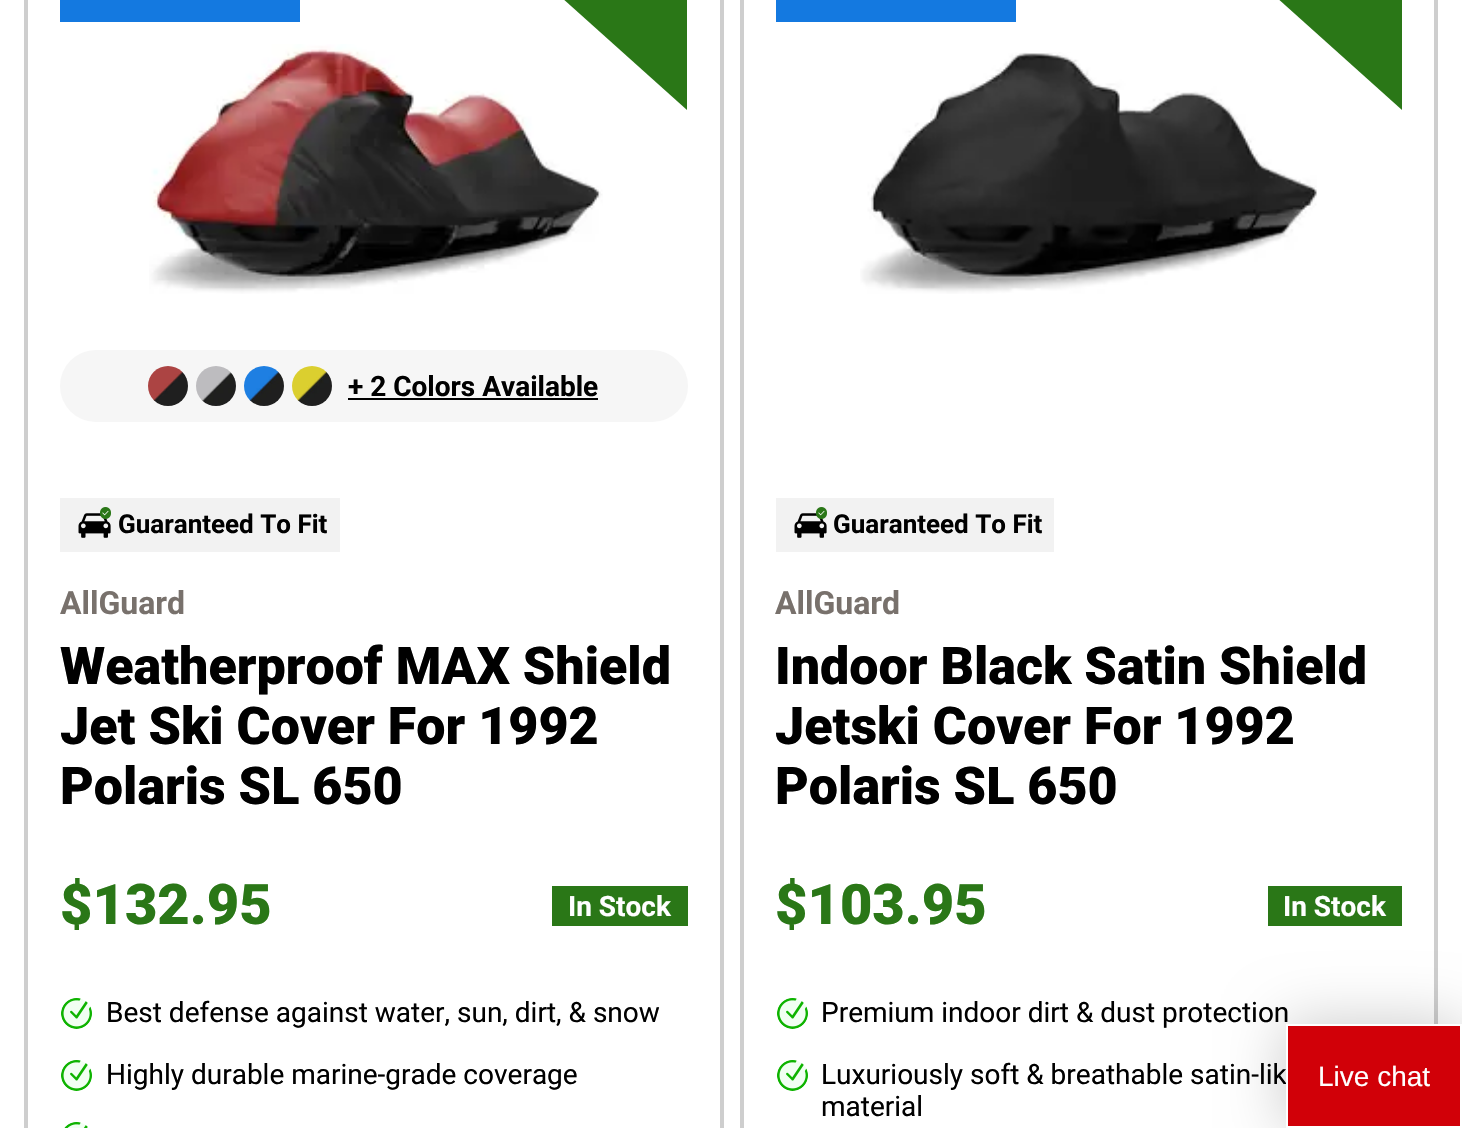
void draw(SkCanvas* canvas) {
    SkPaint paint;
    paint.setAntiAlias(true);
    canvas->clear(0xFFFFFFFF);
    paint.setStyle(SkPaint::kStroke_Style);
    paint.setStrokeWidth(4);
    paint.setColor(0xFFCECECE);
    canvas->drawRect(SkRect::MakeXYWH(26, -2, 696, 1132), paint);
    paint.setStyle(SkPaint::kFill_Style);
    paint.setColor(0xFF1479E0);
    canvas->drawRect(SkRect::MakeXYWH(60, 0, 240, 22), paint);
    canvas->drawImageRect(SkImages::DeferredFromEncodedData(SkData::MakeFromFileName("img1.png")), SkRect::MakeXYWH(149, 44, 454, 250), SkSamplingOptions());
    paint.setColor(0xFF2A7717);
    canvas->drawPath(SkPathBuilder().moveTo(474, -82).lineTo(687, -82).lineTo(687, 110).lineTo(474, -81).close().detach(), paint);
    paint.setColor(0xFFF6F6F6);
    canvas->drawRoundRect(SkRect::MakeXYWH(60, 350, 628, 72), 36, 36, paint);
    canvas->drawImageRect(SkImages::DeferredFromEncodedData(SkData::MakeFromFileName("img2.png")), SkRect::MakeXYWH(148, 366, 40, 40), SkSamplingOptions());
    canvas->drawImageRect(SkImages::DeferredFromEncodedData(SkData::MakeFromFileName("img3.png")), SkRect::MakeXYWH(196, 366, 40, 40), SkSamplingOptions());
    canvas->drawImageRect(SkImages::DeferredFromEncodedData(SkData::MakeFromFileName("img4.png")), SkRect::MakeXYWH(244, 366, 40, 40), SkSamplingOptions());
    canvas->drawImageRect(SkImages::DeferredFromEncodedData(SkData::MakeFromFileName("img5.png")), SkRect::MakeXYWH(292, 366, 40, 40), SkSamplingOptions());
    SkFont font1(fontMgr->matchFamilyStyle("Roboto", SkFontStyle::Bold()), 28);
    font1.setSubpixel(true);
    paint.setColor(0xFF000000);
    canvas->drawString("+ 2 Colors Available", 348, 396, font1, paint);
    canvas->drawRect(SkRect::MakeXYWH(348, 398, 250, 2), paint);
    paint.setColor(0xFFF2F2F2);
    canvas->drawRect(SkRect::MakeXYWH(60, 498, 280, 54), paint);
    canvas->drawImageRect(SkImages::DeferredFromEncodedData(SkData::MakeFromFileName("img6.png")), SkRect::MakeXYWH(78, 507, 33, 31), SkSamplingOptions());
    SkFont font2(fontMgr->matchFamilyStyle("Roboto", SkFontStyle::Bold()), 26);
    font2.setSubpixel(true);
    paint.setColor(0xFF000000);
    canvas->drawString("Guaranteed To Fit", 118, 533, font2, paint);
    SkFont font3(fontMgr->matchFamilyStyle("Roboto", SkFontStyle::Bold()), 32);
    font3.setSubpixel(true);
    paint.setColor(0xFF78716C);
    canvas->drawString("AllGuard", 60, 614, font3, paint);
    SkFont font4(fontMgr->matchFamilyStyle("Roboto", SkFontStyle(900, SkFontStyle::kNormal_Width, SkFontStyle::kUpright_Slant)), 52);
    font4.setSubpixel(true);
    paint.setColor(0xFF000000);
    canvas->drawString("Weatherproof MAX Shield", 60, 684, font4, paint);
    canvas->drawString("Jet Ski Cover For 1992", 60, 744, font4, paint);
    canvas->drawString("Polaris SL 650", 60, 804, font4, paint);
    SkFont font5(fontMgr->matchFamilyStyle("Roboto", SkFontStyle(900, SkFontStyle::kNormal_Width, SkFontStyle::kUpright_Slant)), 56);
    font5.setSubpixel(true);
    paint.setColor(0xFF2A7717);
    canvas->drawString("$132.95", 60, 924, font5, paint);
    canvas->drawRect(SkRect::MakeXYWH(552, 886, 136, 40), paint);
    paint.setColor(0xFFFFFFFF);
    canvas->drawString("In Stock", 568, 916, font1, paint);
    canvas->drawImageRect(SkImages::DeferredFromEncodedData(SkData::MakeFromFileName("img7.png")), SkRect::MakeXYWH(61, 998, 31, 31), SkSamplingOptions());
    SkFont font6(fontMgr->matchFamilyStyle("Roboto", SkFontStyle::Normal()), 28);
    font6.setSubpixel(true);
    paint.setColor(0xFF000000);
    canvas->drawString("Best defense against water, sun, dirt, & snow", 106, 1022, font6, paint);
    canvas->drawImageRect(SkImages::DeferredFromEncodedData(SkData::MakeFromFileName("img7.png")), SkRect::MakeXYWH(61, 1060, 31, 31), SkSamplingOptions());
    canvas->drawString("Highly durable marine-grade coverage", 106, 1084, font6, paint);
    canvas->drawImageRect(SkImages::DeferredFromEncodedData(SkData::MakeFromFileName("img8.png")), SkRect::MakeXYWH(64, 1122, 24, 6), SkSamplingOptions());
    paint.setStyle(SkPaint::kStroke_Style);
    paint.setColor(0xFFCECECE);
    canvas->drawRect(SkRect::MakeXYWH(742, -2, 694, 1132), paint);
    paint.setStyle(SkPaint::kFill_Style);
    paint.setColor(0xFF1479E0);
    canvas->drawRect(SkRect::MakeXYWH(776, 0, 240, 22), paint);
    canvas->drawImageRect(SkImages::DeferredFromEncodedData(SkData::MakeFromFileName("img9.png")), SkRect::MakeXYWH(860, 52, 457, 242), SkSamplingOptions());
    paint.setColor(0xFF2A7717);
    canvas->drawPath(SkPathBuilder().moveTo(1402, 110).lineTo(1402, -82).lineTo(1188, -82).close().detach(), paint);
    paint.setColor(0xFFF2F2F2);
    canvas->drawRect(SkRect::MakeXYWH(776, 498, 278, 54), paint);
    canvas->drawImageRect(SkImages::DeferredFromEncodedData(SkData::MakeFromFileName("img6.png")), SkRect::MakeXYWH(794, 507, 33, 31), SkSamplingOptions());
    paint.setColor(0xFF000000);
    canvas->drawString("Guaranteed To Fit", 833, 533, font2, paint);
    paint.setColor(0xFF78716C);
    canvas->drawString("AllGuard", 775, 614, font3, paint);
    paint.setColor(0xFF000000);
    canvas->drawString("Indoor Black Satin Shield", 775, 684, font4, paint);
    canvas->drawString("Jetski Cover For 1992", 775, 744, font4, paint);
    canvas->drawString("Polaris SL 650", 775, 804, font4, paint);
    paint.setColor(0xFF2A7717);
    canvas->drawString("$103.95", 775, 924, font5, paint);
    canvas->drawRect(SkRect::MakeXYWH(1268, 886, 134, 40), paint);
    paint.setColor(0xFFFFFFFF);
    canvas->drawString("In Stock", 1283, 916, font1, paint);
    canvas->drawImageRect(SkImages::DeferredFromEncodedData(SkData::MakeFromFileName("img7.png")), SkRect::MakeXYWH(777, 998, 31, 31), SkSamplingOptions());
    paint.setColor(0xFF000000);
    canvas->drawString("Premium indoor dirt & dust protection", 821, 1022, font6, paint);
    canvas->drawImageRect(SkImages::DeferredFromEncodedData(SkData::MakeFromFileName("img7.png")), SkRect::MakeXYWH(777, 1060, 31, 31), SkSamplingOptions());
    canvas->drawString("Luxuriously soft & breathable satin-lik", 821, 1084, font6, paint);
    canvas->drawString("material", 821, 1116, font6, paint);
    paint.setColor(0x33000000);
    paint.setMaskFilter(SkMaskFilter::MakeBlur(kNormal_SkBlurStyle, 30));
    canvas->drawRect(SkRect::MakeXYWH(1284, 1022, 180, 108), paint);
    paint.setMaskFilter(nullptr);
    paint.setColor(0xFFD10008);
    canvas->drawRect(SkRect::MakeXYWH(1287, 1025, 174, 102), paint);
    paint.setStyle(SkPaint::kStroke_Style);
    paint.setStrokeWidth(2);
    paint.setColor(0xFFFFFFFF);
    canvas->drawRect(SkRect::MakeXYWH(1287, 1025, 174, 102), paint);
    SkFont font7(fontMgr->matchFamilyStyle("Liberation Sans", SkFontStyle::Normal()), 28);
    font7.setSubpixel(true);
    paint.setStyle(SkPaint::kFill_Style);
    canvas->drawString("Live chat", 1318, 1086, font7, paint);
}
